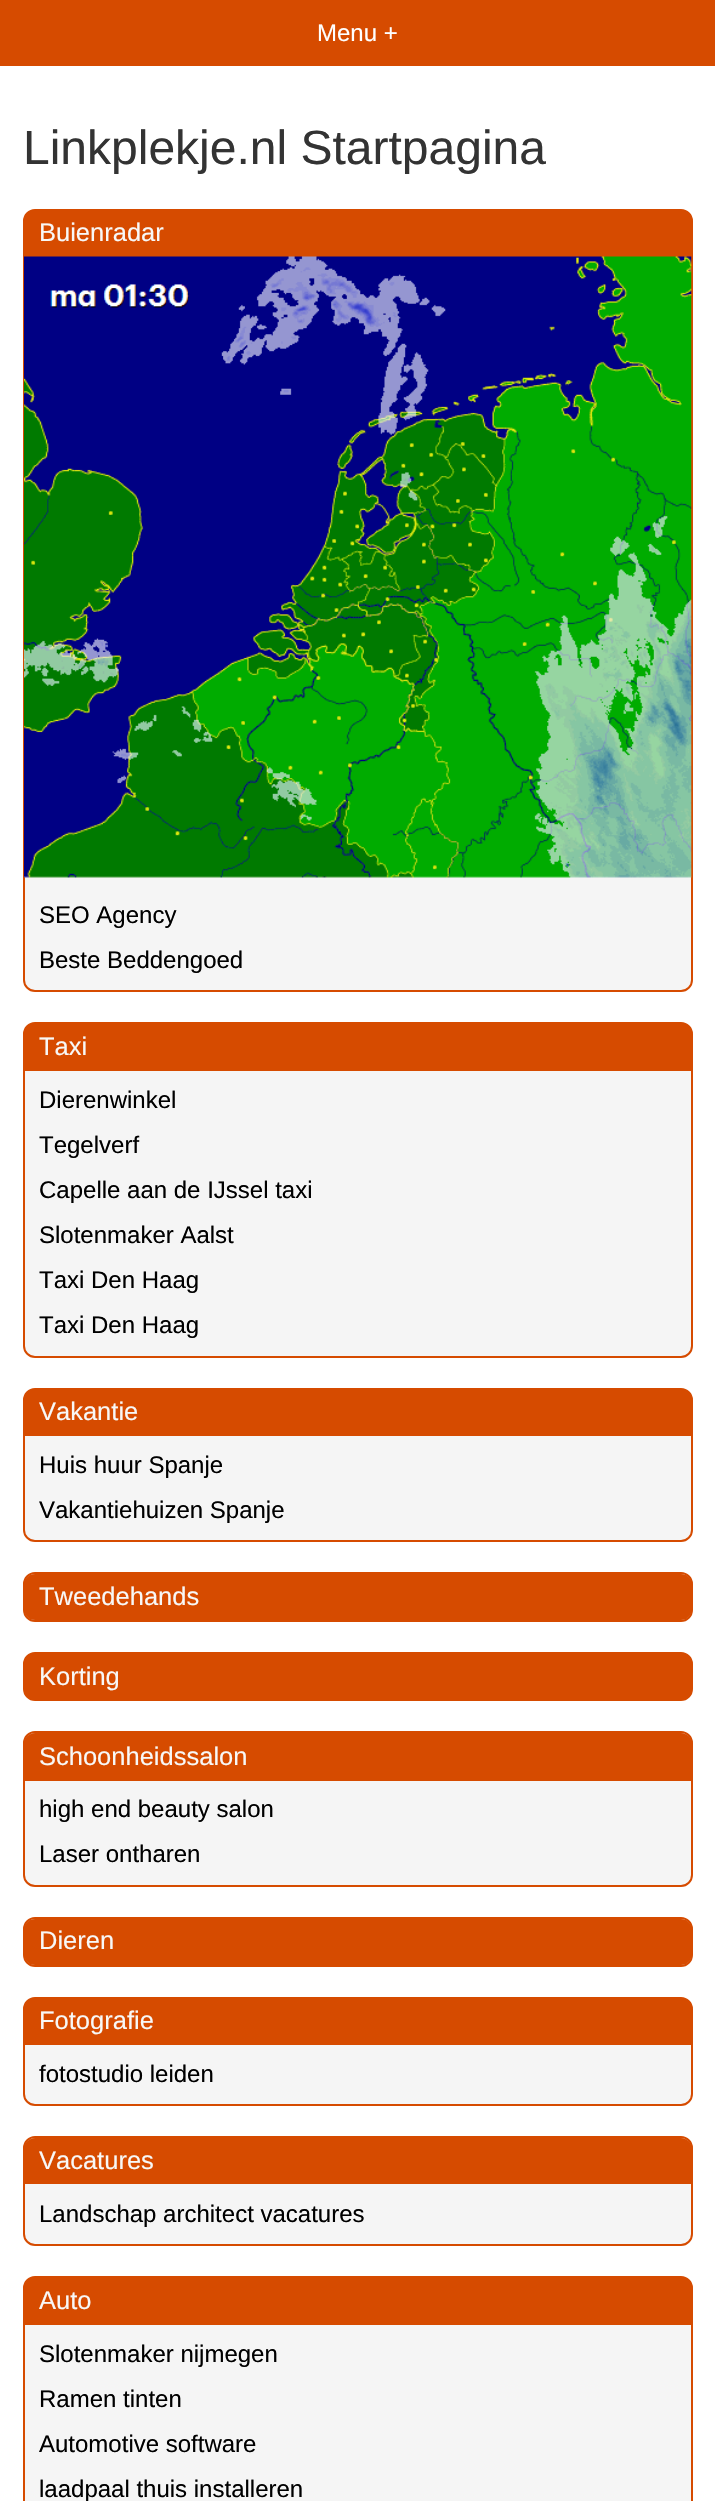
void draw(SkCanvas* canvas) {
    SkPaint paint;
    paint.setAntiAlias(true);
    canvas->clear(0xFFFFFFFF);
    paint.setColor(0xFFD64B00);
    canvas->drawRect(SkRect::MakeXYWH(0, 0, 715, 66), paint);
    SkFont font1(fontMgr->matchFamilyStyle("Liberation Sans", SkFontStyle::Normal()), 24);
    font1.setSubpixel(true);
    paint.setColor(0xFFFFFFFF);
    canvas->drawString("Menu +", 317, 41, font1, paint);
    SkFont font2(fontMgr->matchFamilyStyle("Liberation Sans", SkFontStyle::Normal()), 48);
    font2.setSubpixel(true);
    paint.setColor(0xFF333333);
    canvas->drawString("Linkplekje.nl Startpagina", 23, 164, font2, paint);
    paint.setColor(0xFFF5F5F5);
    canvas->drawRoundRect(SkRect::MakeXYWH(24, 210, 668, 781), 11, 11, paint);
    paint.setStyle(SkPaint::kStroke_Style);
    paint.setStrokeWidth(2);
    paint.setColor(0xFFD64B00);
    canvas->drawRoundRect(SkRect::MakeXYWH(24, 210, 668, 781), 11, 11, paint);
    paint.setStyle(SkPaint::kFill_Style);
    canvas->drawPath(SkPathBuilder().moveTo(35, 210).lineTo(681, 210).cubicTo(687, 210, 692, 215, 692, 221).lineTo(692, 257).lineTo(24, 257).lineTo(24, 221).cubicTo(24, 215, 29, 210, 35, 210).close().detach(), paint);
    SkFont font3(fontMgr->matchFamilyStyle("Liberation Sans", SkFontStyle::Normal()), 25.5f);
    font3.setSubpixel(true);
    paint.setColor(0xFFF8F8F7);
    canvas->drawString("Buienradar", 39, 241, font3, paint);
    canvas->drawImageRect(SkImages::DeferredFromEncodedData(SkData::MakeFromFileName("img1.png")), SkRect::MakeXYWH(24, 256, 668, 622), SkSamplingOptions());
    paint.setColor(0xFF000000);
    canvas->drawString("SEO Agency", 39, 923, font1, paint);
    canvas->drawString("Beste Beddengoed", 39, 968, font1, paint);
    paint.setColor(0xFFF5F5F5);
    canvas->drawRoundRect(SkRect::MakeXYWH(24, 1023, 668, 334), 11, 11, paint);
    paint.setStyle(SkPaint::kStroke_Style);
    paint.setColor(0xFFD64B00);
    canvas->drawRoundRect(SkRect::MakeXYWH(24, 1023, 668, 334), 11, 11, paint);
    paint.setStyle(SkPaint::kFill_Style);
    canvas->drawPath(SkPathBuilder().moveTo(35, 1023).lineTo(681, 1023).cubicTo(687, 1023, 692, 1028, 692, 1034).lineTo(692, 1071).lineTo(24, 1071).lineTo(24, 1034).cubicTo(24, 1028, 29, 1023, 35, 1023).close().detach(), paint);
    paint.setColor(0xFFF8F8F7);
    canvas->drawString("Taxi", 39, 1055, font3, paint);
    paint.setColor(0xFF000000);
    canvas->drawString("Dierenwinkel", 39, 1108, font1, paint);
    canvas->drawString("Tegelverf", 39, 1153, font1, paint);
    canvas->drawString("Capelle aan de IJssel taxi", 39, 1198, font1, paint);
    canvas->drawString("Slotenmaker Aalst", 39, 1243, font1, paint);
    canvas->drawString("Taxi Den Haag", 39, 1288, font1, paint);
    canvas->drawString("Taxi Den Haag", 39, 1333, font1, paint);
    paint.setColor(0xFFF5F5F5);
    canvas->drawRoundRect(SkRect::MakeXYWH(24, 1389, 668, 152), 11, 11, paint);
    paint.setStyle(SkPaint::kStroke_Style);
    paint.setColor(0xFFD64B00);
    canvas->drawRoundRect(SkRect::MakeXYWH(24, 1389, 668, 152), 11, 11, paint);
    paint.setStyle(SkPaint::kFill_Style);
    canvas->drawPath(SkPathBuilder().moveTo(35, 1389).lineTo(681, 1389).cubicTo(687, 1389, 692, 1394, 692, 1400).lineTo(692, 1436).lineTo(24, 1436).lineTo(24, 1400).cubicTo(24, 1394, 29, 1389, 35, 1389).close().detach(), paint);
    paint.setColor(0xFFF8F8F7);
    canvas->drawString("Vakantie", 39, 1420, font3, paint);
    paint.setColor(0xFF000000);
    canvas->drawString("Huis huur Spanje", 39, 1473, font1, paint);
    canvas->drawString("Vakantiehuizen Spanje", 39, 1518, font1, paint);
    paint.setStyle(SkPaint::kStroke_Style);
    paint.setColor(0xFFD64B00);
    canvas->drawRoundRect(SkRect::MakeXYWH(24, 1573, 668, 48), 11, 11, paint);
    paint.setStyle(SkPaint::kFill_Style);
    canvas->drawRoundRect(SkRect::MakeXYWH(24, 1574, 668, 46), 11, 11, paint);
    paint.setColor(0xFFF8F8F7);
    canvas->drawString("Tweedehands", 39, 1605, font3, paint);
    paint.setStyle(SkPaint::kStroke_Style);
    paint.setColor(0xFFD64B00);
    canvas->drawRoundRect(SkRect::MakeXYWH(24, 1653, 668, 47), 11, 11, paint);
    paint.setStyle(SkPaint::kFill_Style);
    canvas->drawRoundRect(SkRect::MakeXYWH(24, 1653, 668, 47), 11, 11, paint);
    paint.setColor(0xFFF8F8F7);
    canvas->drawString("Korting", 39, 1685, font3, paint);
    paint.setColor(0xFFF5F5F5);
    canvas->drawRoundRect(SkRect::MakeXYWH(24, 1732, 668, 154), 11, 11, paint);
    paint.setStyle(SkPaint::kStroke_Style);
    paint.setColor(0xFFD64B00);
    canvas->drawRoundRect(SkRect::MakeXYWH(24, 1732, 668, 154), 11, 11, paint);
    paint.setStyle(SkPaint::kFill_Style);
    canvas->drawPath(SkPathBuilder().moveTo(35, 1733).lineTo(681, 1733).cubicTo(687, 1733, 692, 1738, 692, 1744).lineTo(692, 1781).lineTo(24, 1781).lineTo(24, 1744).cubicTo(24, 1738, 29, 1733, 35, 1733).close().detach(), paint);
    paint.setColor(0xFFF8F8F7);
    canvas->drawString("Schoonheidssalon", 39, 1765, font3, paint);
    paint.setColor(0xFF000000);
    canvas->drawString("high end beauty salon", 39, 1817, font1, paint);
    canvas->drawString("Laser ontharen", 39, 1862, font1, paint);
    paint.setStyle(SkPaint::kStroke_Style);
    paint.setColor(0xFFD64B00);
    canvas->drawRoundRect(SkRect::MakeXYWH(24, 1918, 668, 48), 11, 11, paint);
    paint.setStyle(SkPaint::kFill_Style);
    canvas->drawRoundRect(SkRect::MakeXYWH(24, 1919, 668, 46), 11, 11, paint);
    paint.setColor(0xFFF8F8F7);
    canvas->drawString("Dieren", 39, 1949, font3, paint);
    paint.setColor(0xFFF5F5F5);
    canvas->drawRoundRect(SkRect::MakeXYWH(24, 1998, 668, 107), 11, 11, paint);
    paint.setStyle(SkPaint::kStroke_Style);
    paint.setColor(0xFFD64B00);
    canvas->drawRoundRect(SkRect::MakeXYWH(24, 1998, 668, 107), 11, 11, paint);
    paint.setStyle(SkPaint::kFill_Style);
    canvas->drawPath(SkPathBuilder().moveTo(35, 1998).lineTo(681, 1998).cubicTo(687, 1998, 692, 2003, 692, 2009).lineTo(692, 2045).lineTo(24, 2045).lineTo(24, 2009).cubicTo(24, 2003, 29, 1998, 35, 1998).close().detach(), paint);
    paint.setColor(0xFFF8F8F7);
    canvas->drawString("Fotografie", 39, 2029, font3, paint);
    paint.setColor(0xFF000000);
    canvas->drawString("fotostudio leiden", 39, 2082, font1, paint);
    paint.setColor(0xFFF5F5F5);
    canvas->drawRoundRect(SkRect::MakeXYWH(24, 2137, 668, 108), 11, 11, paint);
    paint.setStyle(SkPaint::kStroke_Style);
    paint.setColor(0xFFD64B00);
    canvas->drawRoundRect(SkRect::MakeXYWH(24, 2137, 668, 108), 11, 11, paint);
    paint.setStyle(SkPaint::kFill_Style);
    canvas->drawPath(SkPathBuilder().moveTo(35, 2138).lineTo(681, 2138).cubicTo(687, 2138, 692, 2143, 692, 2149).lineTo(692, 2184).lineTo(24, 2184).lineTo(24, 2149).cubicTo(24, 2143, 29, 2138, 35, 2138).close().detach(), paint);
    paint.setColor(0xFFF8F8F7);
    canvas->drawString("Vacatures", 39, 2169, font3, paint);
    paint.setColor(0xFF000000);
    canvas->drawString("Landschap architect vacatures", 39, 2222, font1, paint);
    paint.setColor(0xFFF5F5F5);
    canvas->drawRoundRect(SkRect::MakeXYWH(24, 2277, 668, 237), 11, 11, paint);
    paint.setStyle(SkPaint::kStroke_Style);
    paint.setColor(0xFFD64B00);
    canvas->drawRoundRect(SkRect::MakeXYWH(24, 2277, 668, 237), 11, 11, paint);
    paint.setStyle(SkPaint::kFill_Style);
    canvas->drawPath(SkPathBuilder().moveTo(35, 2277).lineTo(681, 2277).cubicTo(687, 2277, 692, 2282, 692, 2288).lineTo(692, 2325).lineTo(24, 2325).lineTo(24, 2288).cubicTo(24, 2282, 29, 2277, 35, 2277).close().detach(), paint);
    paint.setColor(0xFFF8F8F7);
    canvas->drawString("Auto", 39, 2309, font3, paint);
    paint.setColor(0xFF000000);
    canvas->drawString("Slotenmaker nijmegen", 39, 2362, font1, paint);
    canvas->drawString("Ramen tinten", 39, 2407, font1, paint);
    canvas->drawString("Automotive software", 39, 2452, font1, paint);
    canvas->drawString("laadpaal thuis installeren", 39, 2497, font1, paint);
}
